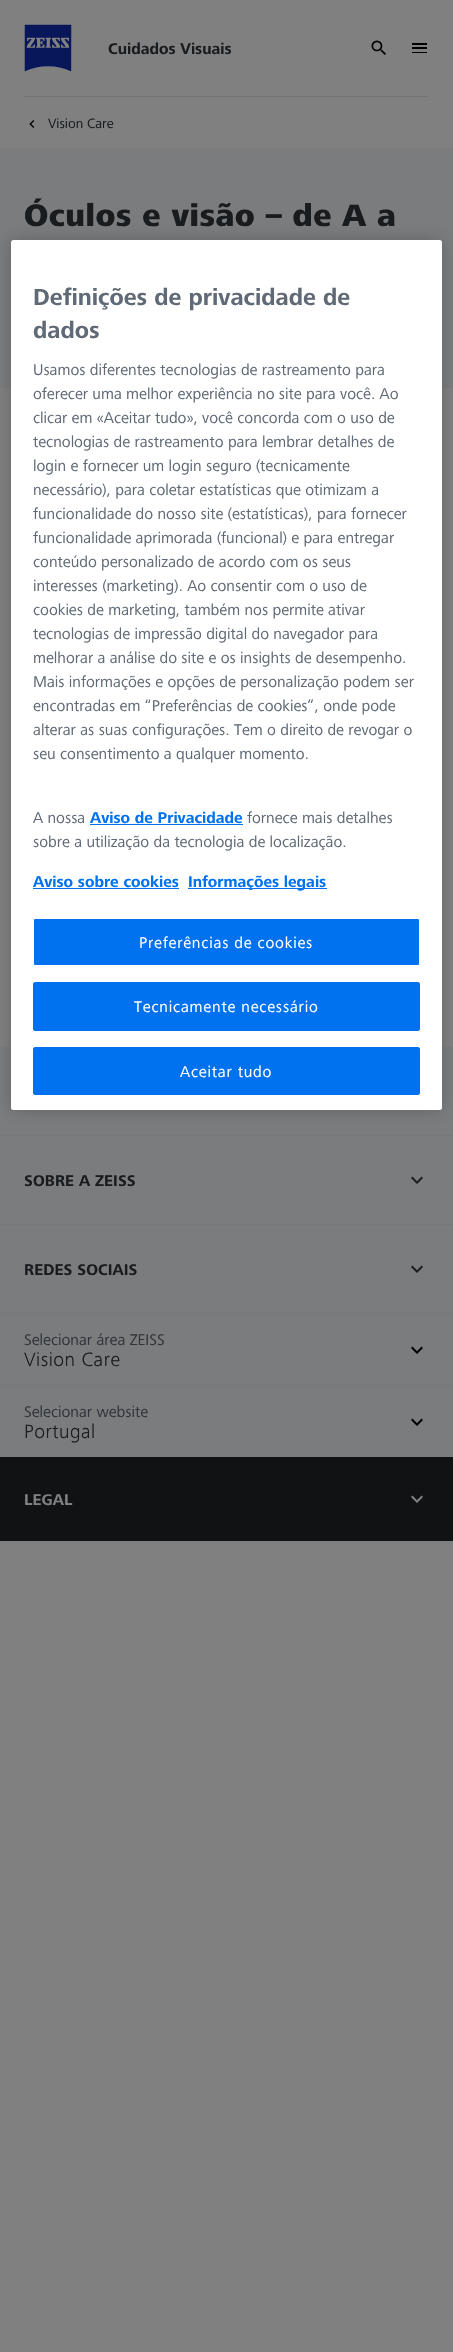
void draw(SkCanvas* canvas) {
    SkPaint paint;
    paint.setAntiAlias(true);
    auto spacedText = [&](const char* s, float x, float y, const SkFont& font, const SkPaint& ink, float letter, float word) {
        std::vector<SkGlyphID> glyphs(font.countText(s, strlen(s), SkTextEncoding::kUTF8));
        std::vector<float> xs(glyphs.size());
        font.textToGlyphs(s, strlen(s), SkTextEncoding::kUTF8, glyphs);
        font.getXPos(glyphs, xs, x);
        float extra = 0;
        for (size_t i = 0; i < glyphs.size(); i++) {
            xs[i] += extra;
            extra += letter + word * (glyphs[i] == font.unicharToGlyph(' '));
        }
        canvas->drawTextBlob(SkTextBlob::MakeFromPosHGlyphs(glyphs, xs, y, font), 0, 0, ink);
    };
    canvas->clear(0xFF808080);
    canvas->drawImageRect(SkImages::DeferredFromEncodedData(SkData::MakeFromFileName("img1.png")), SkRect::MakeXYWH(24, 24, 48, 48), SkSamplingOptions());
    SkFont font1(fontMgr->matchFamilyStyle("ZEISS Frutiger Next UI", SkFontStyle::Bold()), 16);
    font1.setSubpixel(true);
    paint.setColor(0xFF191C1F);
    canvas->drawString("Cuidados Visuais", 108, 54, font1, paint);
    canvas->drawImageRect(SkImages::DeferredFromEncodedData(SkData::MakeFromFileName("img2.png")), SkRect::MakeXYWH(371, 40, 15, 15), SkSamplingOptions());
    canvas->drawImageRect(SkImages::DeferredFromEncodedData(SkData::MakeFromFileName("img3.png")), SkRect::MakeXYWH(412, 43, 15, 10), SkSamplingOptions());
    paint.setColor(0xFF737678);
    canvas->drawRect(SkRect::MakeXYWH(24, 96, 405, 1), paint);
    canvas->drawImageRect(SkImages::DeferredFromEncodedData(SkData::MakeFromFileName("img4.png")), SkRect::MakeXYWH(29, 120, 6, 8), SkSamplingOptions());
    SkFont font2(fontMgr->matchFamilyStyle("ZEISS Frutiger Next UI", SkFontStyle::Normal()), 14);
    font2.setSubpixel(true);
    paint.setColor(0xFF191C1F);
    canvas->drawString("Vision Care", 48, 128, font2, paint);
    paint.setColor(0xFF7B7C7D);
    canvas->drawRect(SkRect::MakeXYWH(0, 148, 453, 240), paint);
    SkFont font3(fontMgr->matchFamilyStyle("ZEISS Frutiger Next UI", SkFontStyle(900, SkFontStyle::kNormal_Width, SkFontStyle::kUpright_Slant)), 32);
    font3.setSubpixel(true);
    paint.setColor(0xFF191C1F);
    spacedText("Óculos e visão – de A a", 24, 226, font3, paint, 0.5f, 0);
    paint.setColor(0xFF7B7C7D);
    canvas->drawRect(SkRect::MakeXYWH(0, 1047, 453, 410), paint);
    paint.setColor(0xFF76787A);
    canvas->drawRect(SkRect::MakeXYWH(0, 1135, 453, 1), paint);
    paint.setColor(0x33000000);
    paint.setMaskFilter(SkMaskFilter::MakeBlur(kNormal_SkBlurStyle, 9));
    canvas->drawRoundRect(SkRect::MakeXYWH(11, 240, 431, 870), 2.5f, 2.5f, paint);
    paint.setMaskFilter(nullptr);
    paint.setColor(0xFFFFFFFF);
    canvas->drawRoundRect(SkRect::MakeXYWH(11, 240, 431, 870), 2.5f, 2.5f, paint);
    SkFont font4(fontMgr->matchFamilyStyle("ZEISS Frutiger Next UI", SkFontStyle::Bold()), 24);
    font4.setSubpixel(true);
    paint.setColor(0xFF606A76);
    canvas->drawString("Definições de privacidade de", 33, 305, font4, paint);
    canvas->drawString("dados", 33, 338, font4, paint);
    SkFont font5(fontMgr->matchFamilyStyle("ZEISS Frutiger Next UI", SkFontStyle::Normal()), 16);
    font5.setSubpixel(true);
    canvas->drawString("Usamos diferentes tecnologias de rastreamento para", 33, 375, font5, paint);
    canvas->drawString("oferecer uma melhor experiência no site para você. Ao", 33, 399, font5, paint);
    canvas->drawString("clicar em «Aceitar tudo», você concorda com o uso de", 33, 423, font5, paint);
    canvas->drawString("tecnologias de rastreamento para lembrar detalhes de", 33, 447, font5, paint);
    canvas->drawString("login e fornecer um login seguro (tecnicamente", 33, 471, font5, paint);
    canvas->drawString("necessário), para coletar estatísticas que otimizam a", 33, 495, font5, paint);
    canvas->drawString("funcionalidade do nosso site (estatísticas), para fornecer", 33, 519, font5, paint);
    canvas->drawString("funcionalidade aprimorada (funcional) e para entregar", 33, 543, font5, paint);
    canvas->drawString("conteúdo personalizado de acordo com os seus", 33, 567, font5, paint);
    canvas->drawString("interesses (marketing). Ao consentir com o uso de", 33, 591, font5, paint);
    canvas->drawString("cookies de marketing, também nos permite ativar", 33, 615, font5, paint);
    canvas->drawString("tecnologias de impressão digital do navegador para", 33, 639, font5, paint);
    canvas->drawString("melhorar a análise do site e os insights de desempenho.", 33, 663, font5, paint);
    canvas->drawString("Mais informações e opções de personalização podem ser", 33, 687, font5, paint);
    canvas->drawString("encontradas em “Preferências de cookies”, onde pode", 33, 711, font5, paint);
    canvas->drawString("alterar as suas configurações. Tem o direito de revogar o", 33, 735, font5, paint);
    canvas->drawString("seu consentimento a qualquer momento.", 33, 759, font5, paint);
    canvas->drawString("A nossa", 33, 823, font5, paint);
    paint.setColor(0xFF0072EF);
    canvas->drawString("Aviso de Privacidade", 90, 823, font1, paint);
    canvas->drawRect(SkRect::MakeXYWH(90, 824, 153, 1), paint);
    paint.setColor(0xFF606A76);
    canvas->drawString("fornece mais detalhes", 247, 823, font5, paint);
    canvas->drawString("sobre a utilização da tecnologia de localização.", 33, 847, font5, paint);
    paint.setColor(0xFF0072EF);
    canvas->drawString("Aviso sobre cookies", 33, 887, font1, paint);
    canvas->drawRect(SkRect::MakeXYWH(33, 888, 146, 1), paint);
    canvas->drawRect(SkRect::MakeXYWH(188, 888, 139, 1), paint);
    canvas->drawString("Informações legais", 188, 887, font1, paint);
    canvas->drawRoundRect(SkRect::MakeXYWH(33.5f, 918.5f, 386, 47), 1.5f, 1.5f, paint);
    paint.setStyle(SkPaint::kStroke_Style);
    paint.setStrokeWidth(1);
    paint.setColor(0xFFFFFFFF);
    canvas->drawRoundRect(SkRect::MakeXYWH(33.5f, 918.5f, 386, 47), 1.5f, 1.5f, paint);
    paint.setStyle(SkPaint::kFill_Style);
    spacedText("Preferências de cookies", 139, 948, font5, paint, 0.8f, 0);
    paint.setColor(0xFF0072EF);
    canvas->drawRoundRect(SkRect::MakeXYWH(33.5f, 982.5f, 386, 48), 1.5f, 1.5f, paint);
    paint.setStyle(SkPaint::kStroke_Style);
    canvas->drawRoundRect(SkRect::MakeXYWH(33.5f, 982.5f, 386, 48), 1.5f, 1.5f, paint);
    paint.setStyle(SkPaint::kFill_Style);
    paint.setColor(0xFFFFFFFF);
    spacedText("Tecnicamente necessário", 134, 1012, font5, paint, 0.8f, 0);
    paint.setColor(0xFF0072EF);
    canvas->drawRoundRect(SkRect::MakeXYWH(33.5f, 1047.5f, 386, 47), 1.5f, 1.5f, paint);
    paint.setStyle(SkPaint::kStroke_Style);
    canvas->drawRoundRect(SkRect::MakeXYWH(33.5f, 1047.5f, 386, 47), 1.5f, 1.5f, paint);
    paint.setStyle(SkPaint::kFill_Style);
    paint.setColor(0xFFFFFFFF);
    spacedText("Aceitar tudo", 180, 1077, font5, paint, 0.8f, 0);
    paint.setColor(0xFF76787A);
    canvas->drawRect(SkRect::MakeXYWH(0, 1224, 453, 1), paint);
    paint.setColor(0xFF191C1F);
    spacedText("SOBRE A ZEISS", 24, 1186, font1, paint, 0.1f, 0);
    canvas->drawImageRect(SkImages::DeferredFromEncodedData(SkData::MakeFromFileName("img5.png")), SkRect::MakeXYWH(411, 1176, 12, 8), SkSamplingOptions());
    paint.setColor(0xFF76787A);
    canvas->drawRect(SkRect::MakeXYWH(0, 1313, 453, 1), paint);
    paint.setColor(0xFF191C1F);
    spacedText("REDES SOCIAIS", 24, 1275, font1, paint, 0.1f, 0);
    canvas->drawImageRect(SkImages::DeferredFromEncodedData(SkData::MakeFromFileName("img6.png")), SkRect::MakeXYWH(411, 1265, 12, 8), SkSamplingOptions());
    paint.setColor(0xFF30353B);
    canvas->drawString("Selecionar área ZEISS", 24, 1345, font5, paint);
    canvas->drawImageRect(SkImages::DeferredFromEncodedData(SkData::MakeFromFileName("img7.png")), SkRect::MakeXYWH(411, 1346, 12, 8), SkSamplingOptions());
    SkFont font6(fontMgr->matchFamilyStyle("ZEISS Frutiger Next UI", SkFontStyle(300, SkFontStyle::kNormal_Width, SkFontStyle::kUpright_Slant)), 20);
    font6.setSubpixel(true);
    paint.setColor(0xFF191C1F);
    spacedText("Vision Care", 24, 1366, font6, paint, 0.5f, 0);
    paint.setColor(0xFF76787A);
    canvas->drawRect(SkRect::MakeXYWH(0, 1385, 453, 1), paint);
    paint.setColor(0xFF30353B);
    canvas->drawString("Selecionar website", 24, 1417, font5, paint);
    canvas->drawImageRect(SkImages::DeferredFromEncodedData(SkData::MakeFromFileName("img7.png")), SkRect::MakeXYWH(411, 1418, 12, 8), SkSamplingOptions());
    paint.setColor(0xFF191C1F);
    spacedText("Portugal", 24, 1438, font6, paint, 0.5f, 0);
    paint.setColor(0xFF101214);
    canvas->drawRect(SkRect::MakeXYWH(0, 1457, 453, 84), paint);
    paint.setColor(0xFF808080);
    spacedText("LEGAL", 24, 1505, font1, paint, 0.1f, 0);
    canvas->drawImageRect(SkImages::DeferredFromEncodedData(SkData::MakeFromFileName("img8.png")), SkRect::MakeXYWH(411, 1495, 12, 8), SkSamplingOptions());
}
